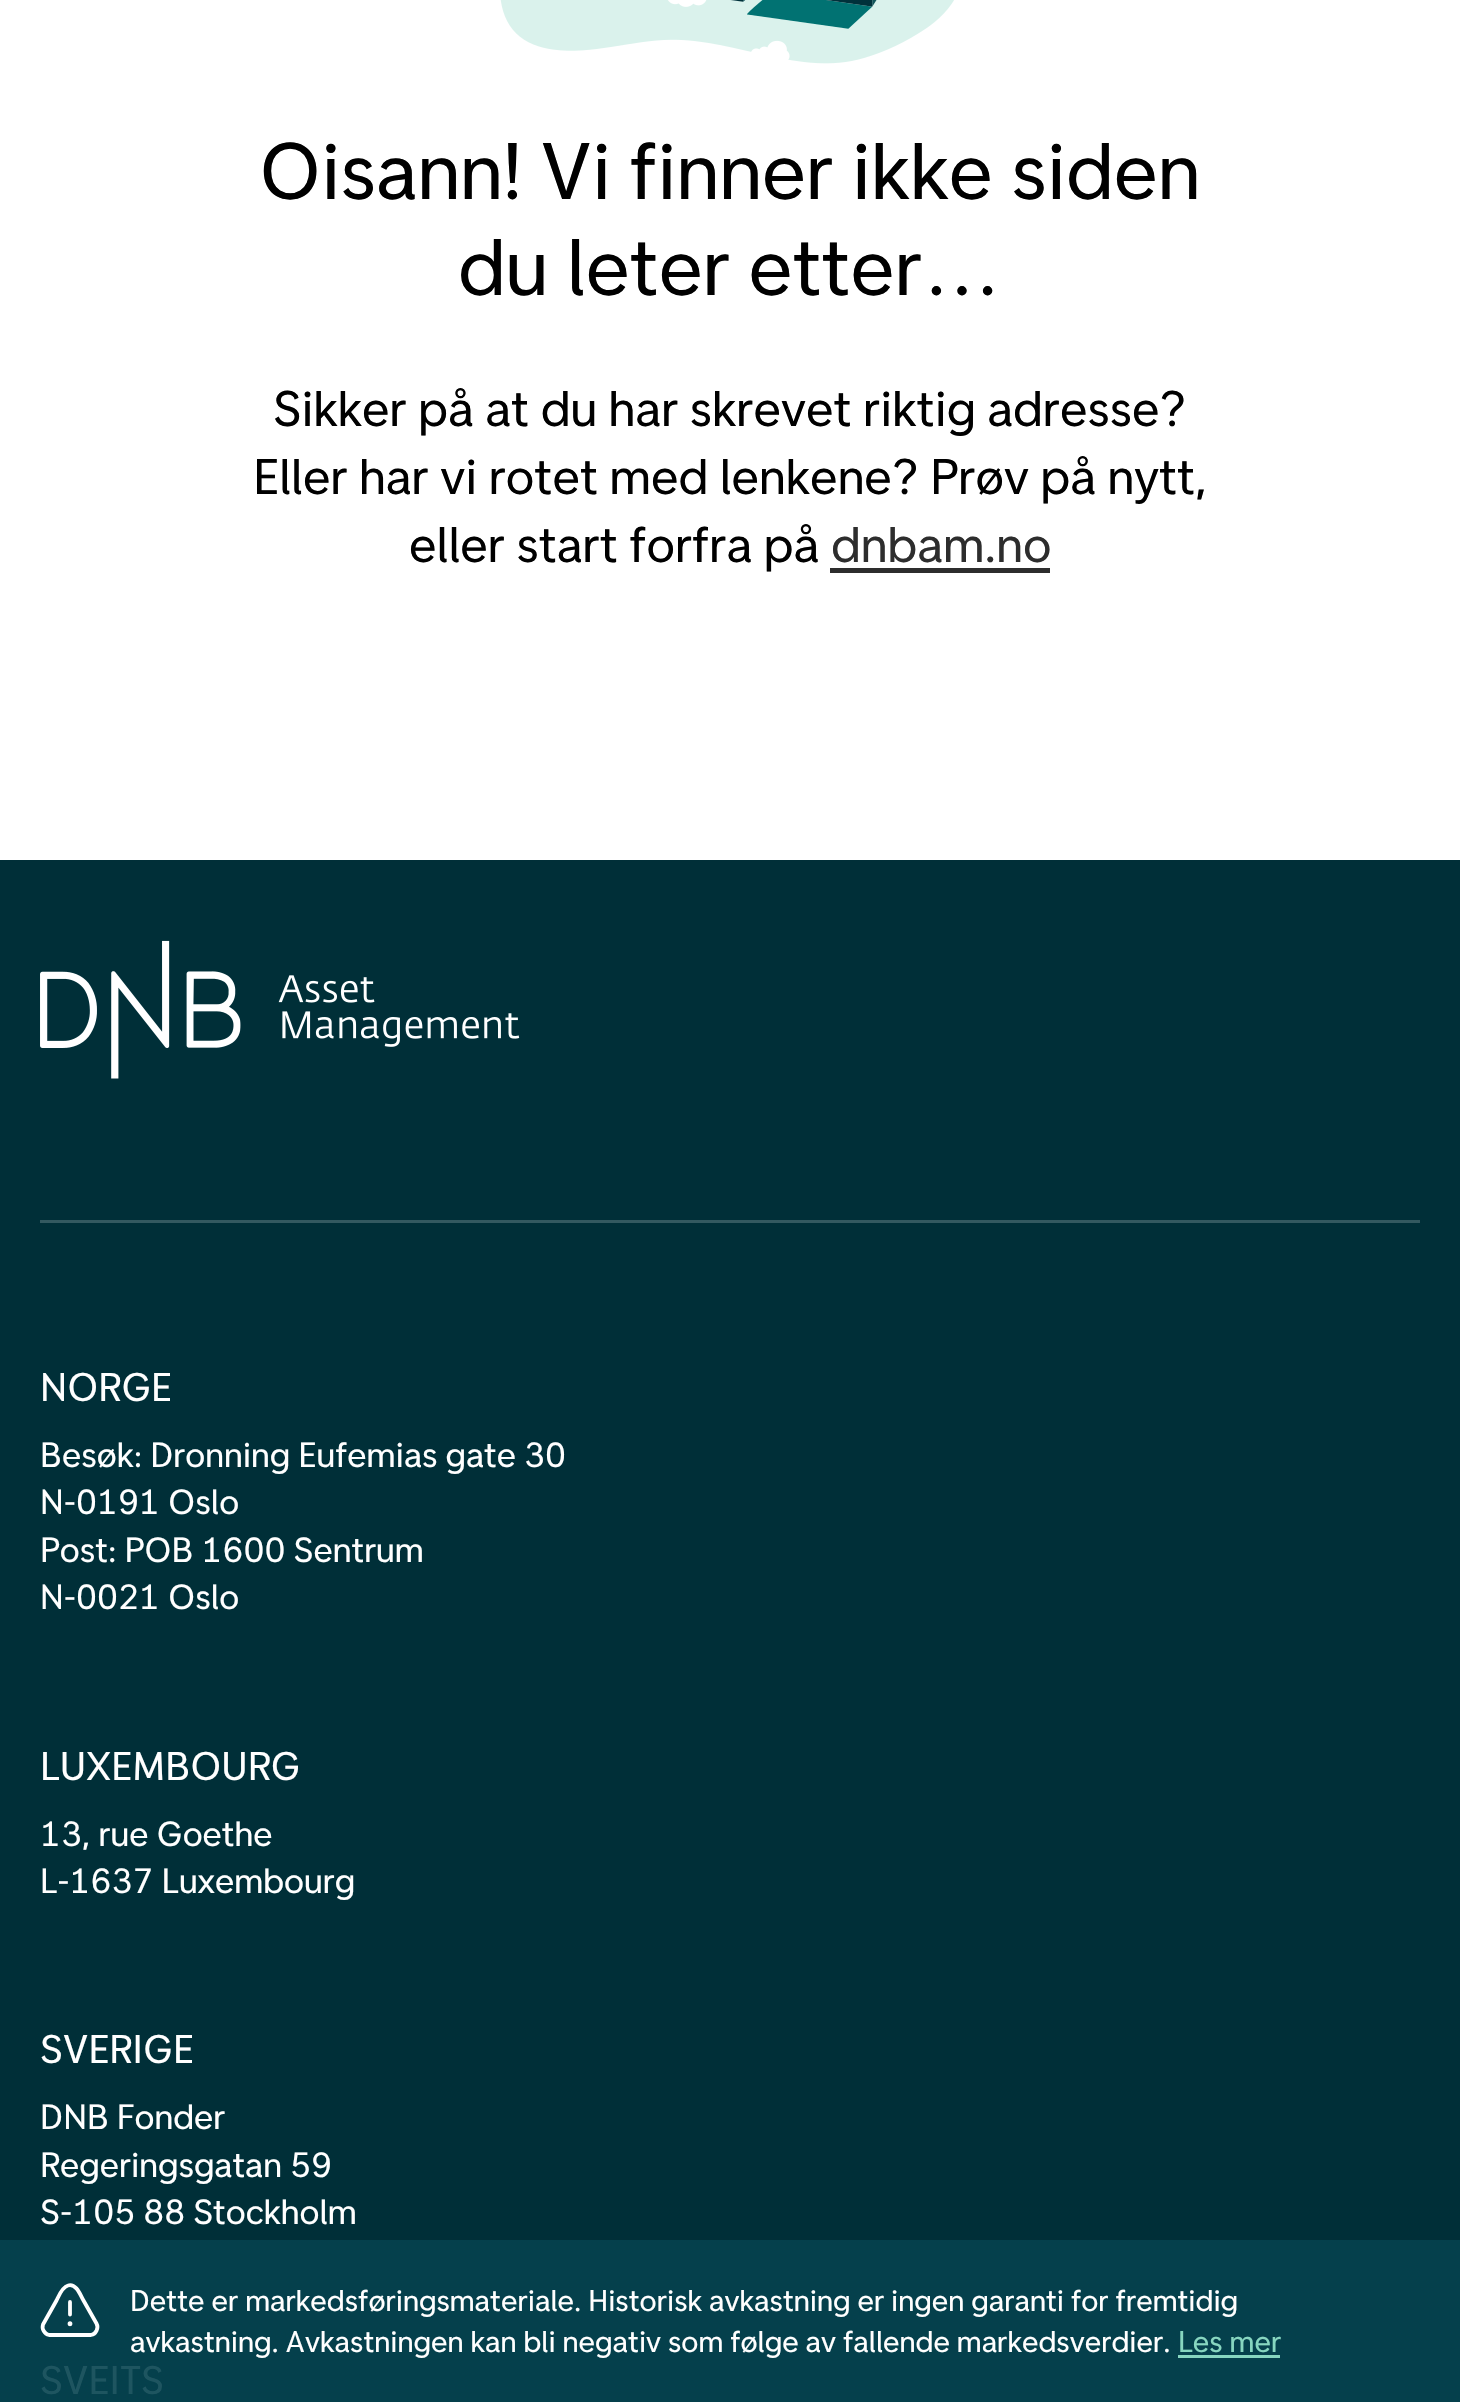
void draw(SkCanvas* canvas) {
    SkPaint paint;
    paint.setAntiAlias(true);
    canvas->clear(0xFFFFFFFF);
    canvas->drawImageRect(SkImages::DeferredFromEncodedData(SkData::MakeFromFileName("img1.png")), SkRect::MakeXYWH(500, 0, 454, 64), SkSamplingOptions());
    SkFont font1(fontMgr->matchFamilyStyle("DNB", SkFontStyle::Normal()), 80);
    font1.setSubpixel(true);
    paint.setColor(0xFF000000);
    canvas->drawString("Oisann! Vi finner ikke siden", 259, 199, font1, paint);
    canvas->drawString("du leter etter…", 458, 295, font1, paint);
    SkFont font2(fontMgr->matchFamilyStyle("DNB", SkFontStyle::Normal()), 50);
    font2.setSubpixel(true);
    canvas->drawString("Sikker på at du har skrevet riktig adresse?", 273, 426, font2, paint);
    canvas->drawString("Eller har vi rotet med lenkene? Prøv på nytt,", 253, 494, font2, paint);
    canvas->drawString("eller start forfra på", 409, 562, font2, paint);
    paint.setColor(0xFF2D2D2D);
    canvas->drawString("dnbam.no", 831, 562, font2, paint);
    canvas->drawRect(SkRect::MakeXYWH(830, 568, 220, 5), paint);
    paint.setColor(0xFF002F38);
    canvas->drawRect(SkRect::MakeXYWH(0, 860, 1460, 1380), paint);
    paint.setColor(0xFF05404C);
    canvas->drawRect(SkRect::MakeXYWH(0, 2240, 1460, 162), paint);
    canvas->drawImageRect(SkImages::DeferredFromEncodedData(SkData::MakeFromFileName("img2.png")), SkRect::MakeXYWH(40, 940, 480, 139), SkSamplingOptions());
    paint.setColor(0xFF335960);
    canvas->drawRect(SkRect::MakeXYWH(40, 1220, 1380, 3), paint);
    SkFont font3(fontMgr->matchFamilyStyle("DNB", SkFontStyle::Normal()), 40);
    font3.setSubpixel(true);
    paint.setColor(0xFFFFFFFF);
    canvas->drawString("NORGE", 40, 1401, font3, paint);
    SkFont font4(fontMgr->matchFamilyStyle("DNB", SkFontStyle::Normal()), 35);
    font4.setSubpixel(true);
    canvas->drawString("Besøk: Dronning Eufemias gate 30", 40, 1467, font4, paint);
    canvas->drawString("N-0191 Oslo", 40, 1514, font4, paint);
    canvas->drawString("Post: POB 1600 Sentrum", 40, 1562, font4, paint);
    canvas->drawString("N-0021 Oslo", 40, 1609, font4, paint);
    canvas->drawString("LUXEMBOURG", 40, 1780, font3, paint);
    canvas->drawString("13, rue Goethe", 40, 1846, font4, paint);
    canvas->drawString("L-1637 Luxembourg", 40, 1893, font4, paint);
    canvas->drawString("SVERIGE", 40, 2063, font3, paint);
    canvas->drawString("DNB Fonder", 40, 2129, font4, paint);
    canvas->drawString("Regeringsgatan 59", 40, 2177, font4, paint);
    canvas->drawString("S-105 88 Stockholm", 40, 2224, font4, paint);
    paint.setColor(0xFF1E5560);
    canvas->drawString("SVEITS", 40, 2394, font3, paint);
    paint.setStyle(SkPaint::kStroke_Style);
    paint.setStrokeWidth(3.8f);
    paint.setStrokeCap(SkPaint::kRound_Cap);
    paint.setStrokeJoin(SkPaint::kRound_Join);
    paint.setColor(0xFFFFFFFF);
    canvas->drawPath(SkPathBuilder().moveTo(70, 2314.5f).lineTo(70, 2302).moveTo(69.5f, 2324).lineTo(70.5f, 2324).moveTo(96.5f, 2323.5f).cubicTo(99, 2328, 96, 2334, 91, 2335).lineTo(49, 2335).cubicTo(44.5f, 2334, 41.5f, 2329, 43, 2324.5f).lineTo(56.5f, 2300.5f).cubicTo(58.5f, 2296.5f, 62, 2287, 68, 2285.5f).cubicTo(76.5f, 2283, 80.5f, 2295.5f, 83.5f, 2300.5f).close().moveTo(70.5f, 2324).cubicTo(70.5f, 2324.5f, 69.5f, 2324.5f, 69.5f, 2324).cubicTo(69.5f, 2323, 70.5f, 2323, 70.5f, 2324).close().detach(), paint);
    SkFont font5(fontMgr->matchFamilyStyle("DNB", SkFontStyle::Normal()), 30);
    font5.setSubpixel(true);
    paint.setStyle(SkPaint::kFill_Style);
    canvas->drawString("Dette er markedsføringsmateriale. Historisk avkastning er ingen garanti for fremtidig", 130, 2311, font5, paint);
    canvas->drawString("avkastning. Avkastningen kan bli negativ som følge av fallende markedsverdier.", 130, 2352, font5, paint);
    paint.setColor(0xFF87D6C0);
    canvas->drawString("Les mer", 1178, 2352, font5, paint);
    canvas->drawRect(SkRect::MakeXYWH(1178, 2355, 102, 3), paint);
}
